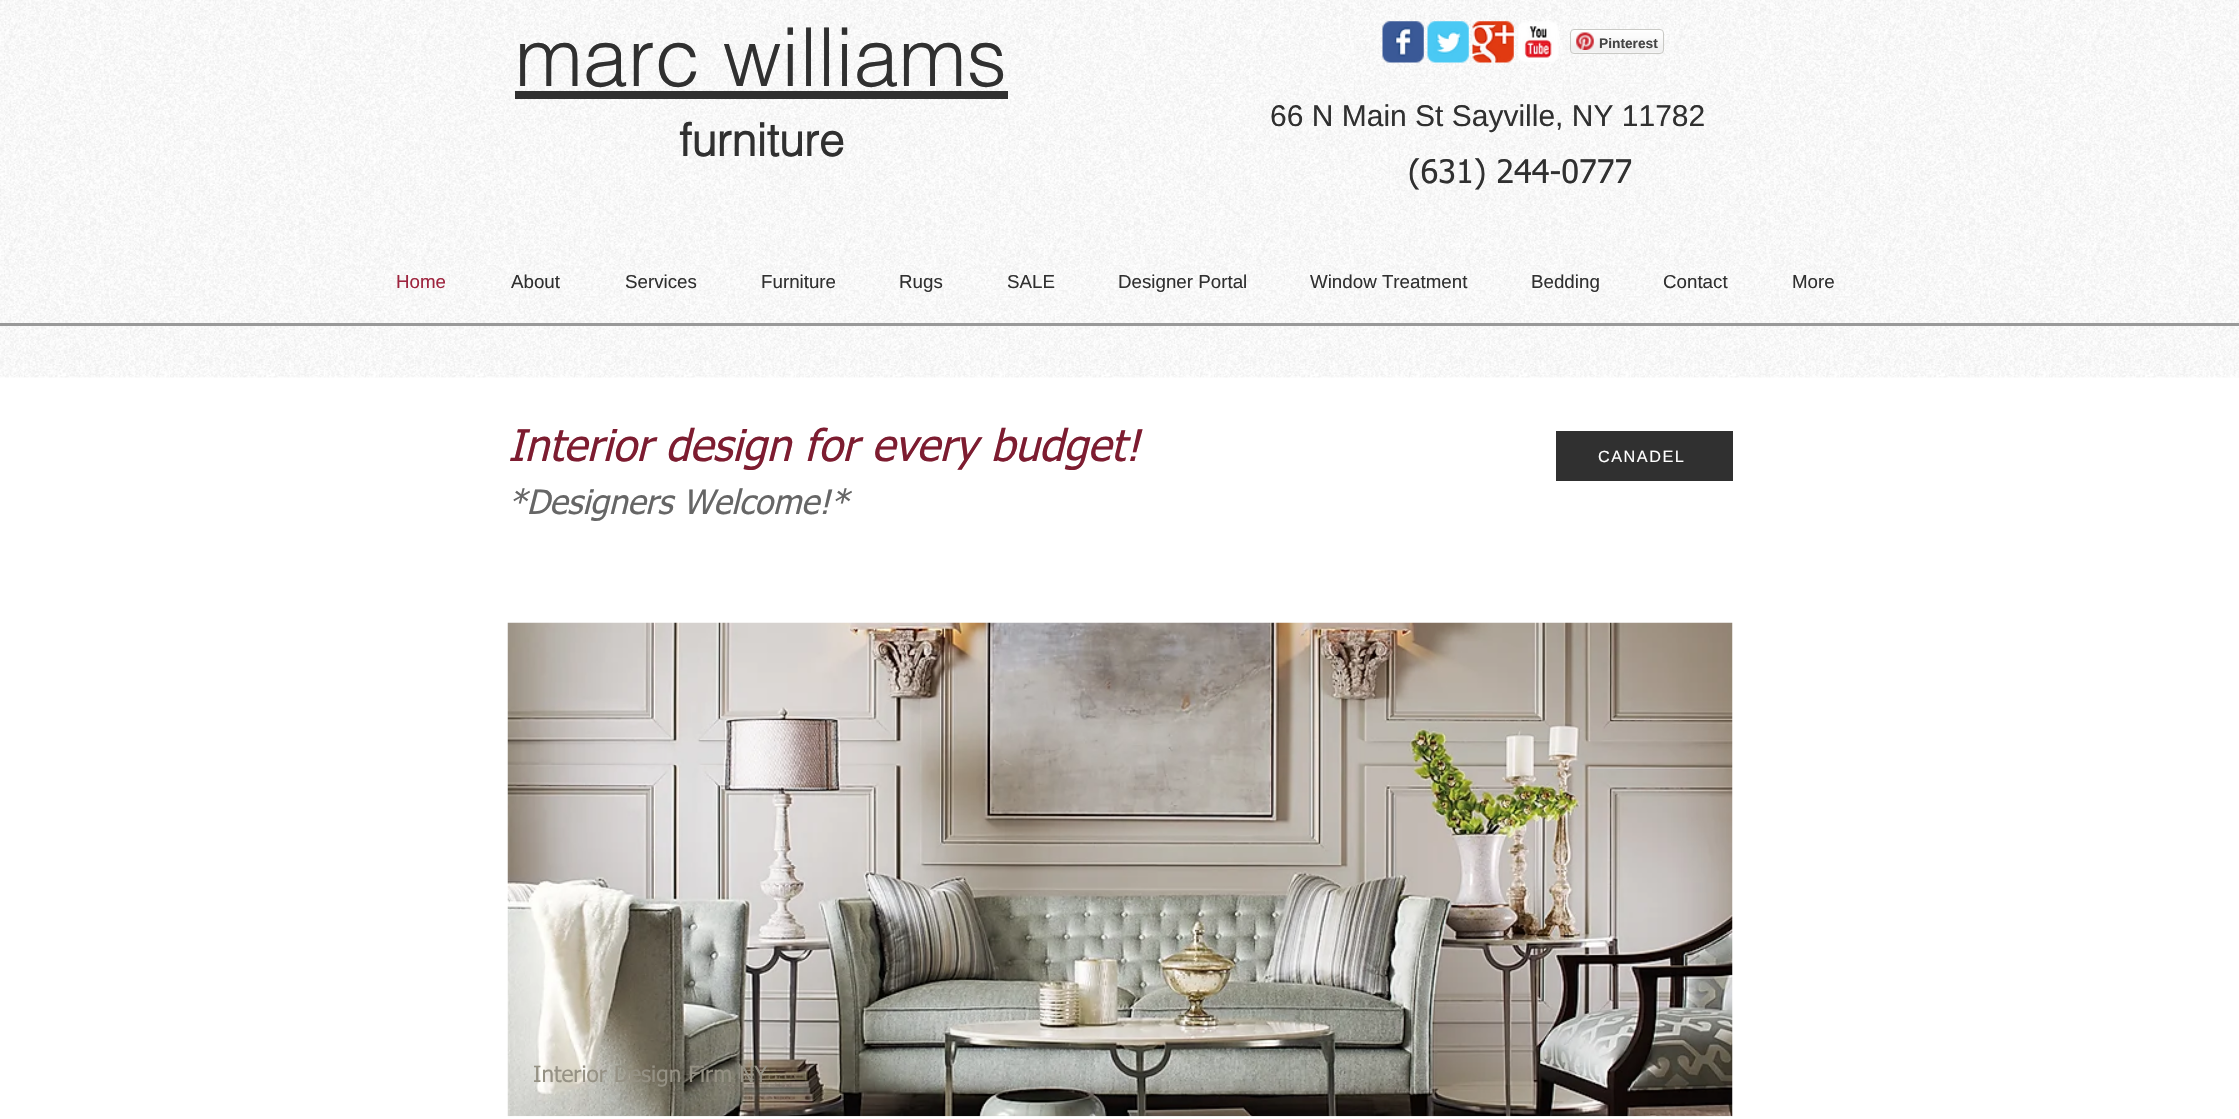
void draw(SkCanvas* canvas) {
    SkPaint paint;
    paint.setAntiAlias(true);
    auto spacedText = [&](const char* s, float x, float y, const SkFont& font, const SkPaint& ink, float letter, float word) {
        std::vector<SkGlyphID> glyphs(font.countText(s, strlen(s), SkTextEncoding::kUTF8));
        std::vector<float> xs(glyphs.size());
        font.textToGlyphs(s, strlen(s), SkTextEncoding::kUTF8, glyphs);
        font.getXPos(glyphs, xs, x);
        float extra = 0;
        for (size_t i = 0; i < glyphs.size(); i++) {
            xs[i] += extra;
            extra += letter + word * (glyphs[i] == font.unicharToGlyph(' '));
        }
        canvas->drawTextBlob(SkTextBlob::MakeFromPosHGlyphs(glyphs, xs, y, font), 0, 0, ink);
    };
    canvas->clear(0xFFFFFFFF);
    canvas->drawImageRect(SkImages::DeferredFromEncodedData(SkData::MakeFromFileName("img1.png")), SkRect::MakeXYWH(0, 0, 2239, 378), SkSamplingOptions());
    SkFont font1(fontMgr->matchFamilyStyle("helvetica", SkFontStyle(300, SkFontStyle::kNormal_Width, SkFontStyle::kUpright_Slant)), 81.25f);
    font1.setSubpixel(true);
    paint.setColor(0xFF303030);
    canvas->drawString("marc williams", 515, 86, font1, paint);
    canvas->drawRect(SkRect::MakeXYWH(515, 91, 493, 8), paint);
    SkFont font2(fontMgr->matchFamilyStyle("helvetica", SkFontStyle::Bold()), 45);
    font2.setSubpixel(true);
    canvas->drawString("furniture", 679, 156, font2, paint);
    canvas->drawImageRect(SkImages::DeferredFromEncodedData(SkData::MakeFromFileName("img2.png")), SkRect::MakeXYWH(1382, 21, 42, 42), SkSamplingOptions());
    canvas->drawImageRect(SkImages::DeferredFromEncodedData(SkData::MakeFromFileName("img3.png")), SkRect::MakeXYWH(1427, 21, 42, 42), SkSamplingOptions());
    canvas->drawImageRect(SkImages::DeferredFromEncodedData(SkData::MakeFromFileName("img4.png")), SkRect::MakeXYWH(1472, 21, 42, 42), SkSamplingOptions());
    canvas->drawImageRect(SkImages::DeferredFromEncodedData(SkData::MakeFromFileName("img5.png")), SkRect::MakeXYWH(1518, 21, 41, 41), SkSamplingOptions());
    canvas->drawImageRect(SkImages::DeferredFromEncodedData(SkData::MakeFromFileName("img7.png")), SkRect::MakeXYWH(1570, 30, 94, 23), SkSamplingOptions());
    paint.setStyle(SkPaint::kStroke_Style);
    paint.setStrokeWidth(1);
    paint.setColor(0xFFC9C9C5);
    canvas->drawRoundRect(SkRect::MakeXYWH(1570.5f, 29.5f, 93, 24), 3.5f, 3.5f, paint);
    canvas->drawImageRect(SkImages::DeferredFromEncodedData(SkData::MakeFromFileName("img6.png")), SkRect::MakeXYWH(1576, 32, 18, 18), SkSamplingOptions());
    SkFont font3(fontMgr->matchFamilyStyle("Liberation Sans", SkFontStyle::Bold()), 13.75f);
    font3.setSubpixel(true);
    paint.setStyle(SkPaint::kFill_Style);
    paint.setColor(0xFF444444);
    canvas->drawString("Pinterest", 1599, 48, font3, paint);
    SkFont font4(fontMgr->matchFamilyStyle("Liberation Sans", SkFontStyle::Normal()), 30);
    font4.setSubpixel(true);
    paint.setColor(0xFF303030);
    canvas->drawString("66 N Main St Sayville, NY 11782", 1270, 126, font4, paint);
    SkFont font5(fontMgr->matchFamilyStyle("tahoma", SkFontStyle::Normal()), 32.5f);
    font5.setSubpixel(true);
    canvas->drawString("(631) 244-0777", 1408, 183, font5, paint);
    SkFont font6(fontMgr->matchFamilyStyle("Liberation Sans", SkFontStyle::Normal()), 18.75f);
    font6.setSubpixel(true);
    paint.setColor(0xFF9E253F);
    canvas->drawString("Home", 396, 288, font6, paint);
    paint.setColor(0xFF303030);
    canvas->drawString("About", 511, 288, font6, paint);
    canvas->drawString("Services", 625, 288, font6, paint);
    canvas->drawString("Furniture", 761, 288, font6, paint);
    canvas->drawString("Rugs", 899, 288, font6, paint);
    canvas->drawString("SALE", 1007, 288, font6, paint);
    canvas->drawString("Designer Portal", 1118, 288, font6, paint);
    canvas->drawString("Window Treatment", 1310, 288, font6, paint);
    canvas->drawString("Bedding", 1531, 288, font6, paint);
    canvas->drawString("Contact", 1663, 288, font6, paint);
    canvas->drawString("More", 1792, 288, font6, paint);
    paint.setColor(0xFF999999);
    canvas->drawRect(SkRect::MakeXYWH(0, 323, 2239, 3), paint);
    SkFont font7(fontMgr->matchFamilyStyle("tahoma", SkFontStyle::Italic()), 43.75f);
    font7.setSubpixel(true);
    paint.setColor(0xFF7D1C30);
    canvas->drawString("Interior design for every budget!", 508, 461, font7, paint);
    SkFont font8(fontMgr->matchFamilyStyle("tahoma", SkFontStyle::Italic()), 33.75f);
    font8.setSubpixel(true);
    paint.setColor(0xFF666666);
    canvas->drawString("*Designers Welcome!*", 508, 514, font8, paint);
    paint.setColor(0xFF303030);
    canvas->drawRect(SkRect::MakeXYWH(1556, 431, 177, 50), paint);
    SkFont font9(fontMgr->matchFamilyStyle("Liberation Sans", SkFontStyle::Normal()), 16.25f);
    font9.setSubpixel(true);
    paint.setColor(0xFFFFFFFF);
    spacedText("CANADEL", 1598, 462, font9, paint, 1.5f, 0);
    canvas->drawImageRect(SkImages::DeferredFromEncodedData(SkData::MakeFromFileName("img8.png")), SkRect::MakeXYWH(507, 622, 1226, 495), SkSamplingOptions());
    SkFont font10(fontMgr->matchFamilyStyle("tahoma", SkFontStyle::Normal()), 22.5f);
    font10.setSubpixel(true);
    paint.setColor(0xFF959184);
    canvas->drawString("Interior Design Firm NY", 533, 1082, font10, paint);
}
